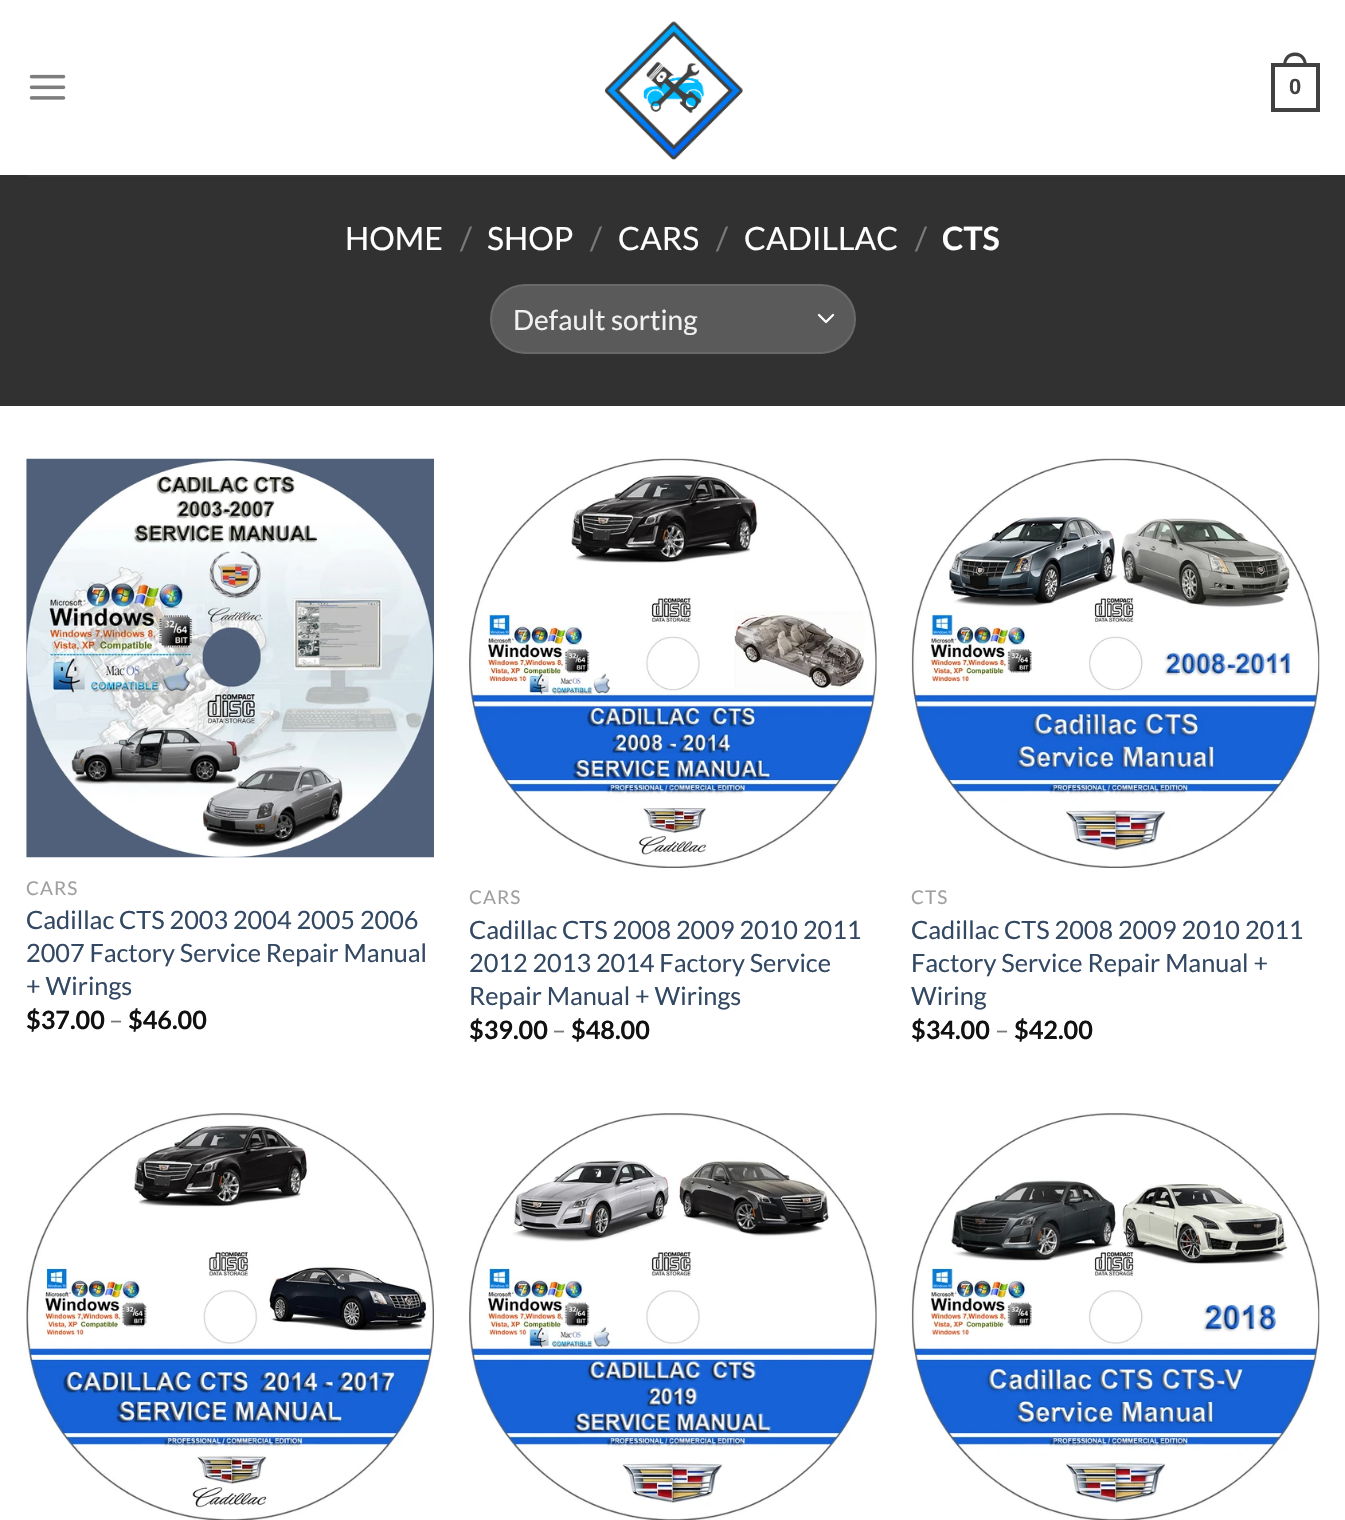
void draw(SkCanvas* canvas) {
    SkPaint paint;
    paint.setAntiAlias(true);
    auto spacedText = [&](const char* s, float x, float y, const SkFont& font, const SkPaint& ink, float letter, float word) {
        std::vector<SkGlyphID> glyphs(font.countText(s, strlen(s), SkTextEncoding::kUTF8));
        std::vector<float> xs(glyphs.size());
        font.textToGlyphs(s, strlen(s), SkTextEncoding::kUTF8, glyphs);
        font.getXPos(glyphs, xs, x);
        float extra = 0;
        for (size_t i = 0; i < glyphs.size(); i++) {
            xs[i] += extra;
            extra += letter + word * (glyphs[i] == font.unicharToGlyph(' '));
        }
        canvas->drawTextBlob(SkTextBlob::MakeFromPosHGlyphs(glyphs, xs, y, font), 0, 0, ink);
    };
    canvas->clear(0xFFFFFFFF);
    canvas->drawImageRect(SkImages::DeferredFromEncodedData(SkData::MakeFromFileName("img1.png")), SkRect::MakeXYWH(29, 74, 37, 26), SkSamplingOptions());
    canvas->drawImageRect(SkImages::DeferredFromEncodedData(SkData::MakeFromFileName("img2.png")), SkRect::MakeXYWH(604, 21, 139, 139), SkSamplingOptions());
    paint.setStyle(SkPaint::kStroke_Style);
    paint.setStrokeWidth(4);
    paint.setColor(0xFF414141);
    canvas->drawRect(SkRect::MakeXYWH(1273, 65, 45, 45), paint);
    paint.setStyle(SkPaint::kFill_Style);
    canvas->drawPath(SkPathBuilder(SkPathFillType::kEvenOdd).moveTo(1295, 52.5f).cubicTo(1303.5f, 52.5f, 1307, 59, 1307, 66.5f).lineTo(1283, 66.5f).cubicTo(1283, 59, 1286.5f, 52.5f, 1295, 52.5f).close().moveTo(1295, 56).cubicTo(1301.5f, 56, 1304, 61, 1304, 66.5f).lineTo(1286, 66.5f).cubicTo(1286, 61, 1288.5f, 56, 1295, 56).close().detach(), paint);
    SkFont font1(fontMgr->matchFamilyStyle("Liberation Sans", SkFontStyle::Bold()), 22);
    font1.setSubpixel(true);
    canvas->drawString("0", 1289, 94, font1, paint);
    paint.setColor(0xFF313131);
    canvas->drawRect(SkRect::MakeXYWH(0, 175, 1345, 231), paint);
    paint.setColor(0xFF383838);
    canvas->drawRect(SkRect::MakeXYWH(26, 175, 1294, 2), paint);
    SkFont font2(fontMgr->matchFamilyStyle("Lato", SkFontStyle::Normal()), 32);
    font2.setSubpixel(true);
    paint.setColor(0xFFFFFFFF);
    canvas->drawString("HOME", 345, 250, font2, paint);
    paint.setColor(0xFF797979);
    canvas->drawString("/", 460, 250, font2, paint);
    paint.setColor(0xFFFFFFFF);
    canvas->drawString("SHOP", 487, 250, font2, paint);
    paint.setColor(0xFF797979);
    canvas->drawString("/", 590, 250, font2, paint);
    paint.setColor(0xFFFFFFFF);
    canvas->drawString("CARS", 618, 250, font2, paint);
    paint.setColor(0xFF797979);
    canvas->drawString("/", 716, 250, font2, paint);
    paint.setColor(0xFFFFFFFF);
    canvas->drawString("CADILLAC", 744, 250, font2, paint);
    paint.setColor(0xFF797979);
    canvas->drawString("/", 915, 250, font2, paint);
    SkFont font3(fontMgr->matchFamilyStyle("Lato", SkFontStyle::Bold()), 32);
    font3.setSubpixel(true);
    paint.setColor(0xFFFFFFFF);
    canvas->drawString("CTS", 942, 250, font3, paint);
    paint.setColor(0xFF5A5A5A);
    canvas->drawRoundRect(SkRect::MakeXYWH(490, 284, 366, 70), 35, 35, paint);
    paint.setStyle(SkPaint::kStroke_Style);
    paint.setStrokeWidth(2.3f);
    paint.setStrokeCap(SkPaint::kRound_Cap);
    paint.setStrokeJoin(SkPaint::kRound_Join);
    paint.setColor(0xFFFFFFFF);
    canvas->drawPath(SkPathBuilder().moveTo(819, 315).lineTo(826, 322).lineTo(833, 315).detach(), paint);
    paint.setStrokeWidth(2);
    paint.setStrokeCap(SkPaint::kButt_Cap);
    paint.setStrokeJoin(SkPaint::kMiter_Join);
    paint.setColor(0x17FFFFFF);
    canvas->drawRoundRect(SkRect::MakeXYWH(491, 285, 364, 68), 34, 34, paint);
    SkFont font4(fontMgr->matchFamilyStyle("Lato", SkFontStyle::Normal()), 28);
    font4.setSubpixel(true);
    paint.setStyle(SkPaint::kFill_Style);
    paint.setColor(0xFFF1F1F1);
    canvas->drawString("Default sorting", 513, 330, font4, paint);
    canvas->drawImageRect(SkImages::DeferredFromEncodedData(SkData::MakeFromFileName("img3.png")), SkRect::MakeXYWH(26, 458, 408, 400), SkSamplingOptions());
    SkFont font5(fontMgr->matchFamilyStyle("Lato", SkFontStyle::Normal()), 19);
    font5.setSubpixel(true);
    paint.setColor(0xFFA0A0A0);
    spacedText("CARS", 26, 895, font5, paint, 1, 0);
    SkFont font6(fontMgr->matchFamilyStyle("Lato", SkFontStyle::Normal()), 25.25f);
    font6.setSubpixel(true);
    paint.setColor(0xFF334862);
    canvas->drawString("Cadillac CTS 2003 2004 2005 2006", 26, 929, font6, paint);
    canvas->drawString("2007 Factory Service Repair Manual", 26, 962, font6, paint);
    canvas->drawString("+ Wirings", 26, 995, font6, paint);
    SkFont font7(fontMgr->matchFamilyStyle("Lato", SkFontStyle::Bold()), 25.25f);
    font7.setSubpixel(true);
    paint.setColor(0xFF111111);
    canvas->drawString("$37.00", 26, 1029, font7, paint);
    paint.setColor(0xFF797979);
    canvas->drawString("–", 109, 1029, font6, paint);
    paint.setColor(0xFF111111);
    canvas->drawString("$46.00", 128, 1029, font7, paint);
    canvas->drawImageRect(SkImages::DeferredFromEncodedData(SkData::MakeFromFileName("img4.png")), SkRect::MakeXYWH(469, 458, 408, 410), SkSamplingOptions());
    paint.setColor(0xFFA0A0A0);
    spacedText("CARS", 469, 904, font5, paint, 1, 0);
    paint.setColor(0xFF334862);
    canvas->drawString("Cadillac CTS 2008 2009 2010 2011", 469, 939, font6, paint);
    canvas->drawString("2012 2013 2014 Factory Service", 469, 972, font6, paint);
    canvas->drawString("Repair Manual + Wirings", 469, 1005, font6, paint);
    paint.setColor(0xFF111111);
    canvas->drawString("$39.00", 469, 1039, font7, paint);
    paint.setColor(0xFF797979);
    canvas->drawString("–", 552, 1039, font6, paint);
    paint.setColor(0xFF111111);
    canvas->drawString("$48.00", 571, 1039, font7, paint);
    canvas->drawImageRect(SkImages::DeferredFromEncodedData(SkData::MakeFromFileName("img5.png")), SkRect::MakeXYWH(911, 458, 409, 410), SkSamplingOptions());
    paint.setColor(0xFFA0A0A0);
    spacedText("CTS", 911, 904, font5, paint, 1, 0);
    paint.setColor(0xFF334862);
    canvas->drawString("Cadillac CTS 2008 2009 2010 2011", 911, 939, font6, paint);
    canvas->drawString("Factory Service Repair Manual +", 911, 972, font6, paint);
    canvas->drawString("Wiring", 911, 1005, font6, paint);
    paint.setColor(0xFF111111);
    canvas->drawString("$34.00", 911, 1039, font7, paint);
    paint.setColor(0xFF797979);
    canvas->drawString("–", 995, 1039, font6, paint);
    paint.setColor(0xFF111111);
    canvas->drawString("$42.00", 1014, 1039, font7, paint);
    canvas->drawImageRect(SkImages::DeferredFromEncodedData(SkData::MakeFromFileName("img6.png")), SkRect::MakeXYWH(26, 1113, 408, 407), SkSamplingOptions());
    canvas->drawImageRect(SkImages::DeferredFromEncodedData(SkData::MakeFromFileName("img7.png")), SkRect::MakeXYWH(469, 1113, 408, 407), SkSamplingOptions());
    canvas->drawImageRect(SkImages::DeferredFromEncodedData(SkData::MakeFromFileName("img8.png")), SkRect::MakeXYWH(911, 1113, 409, 407), SkSamplingOptions());
}
